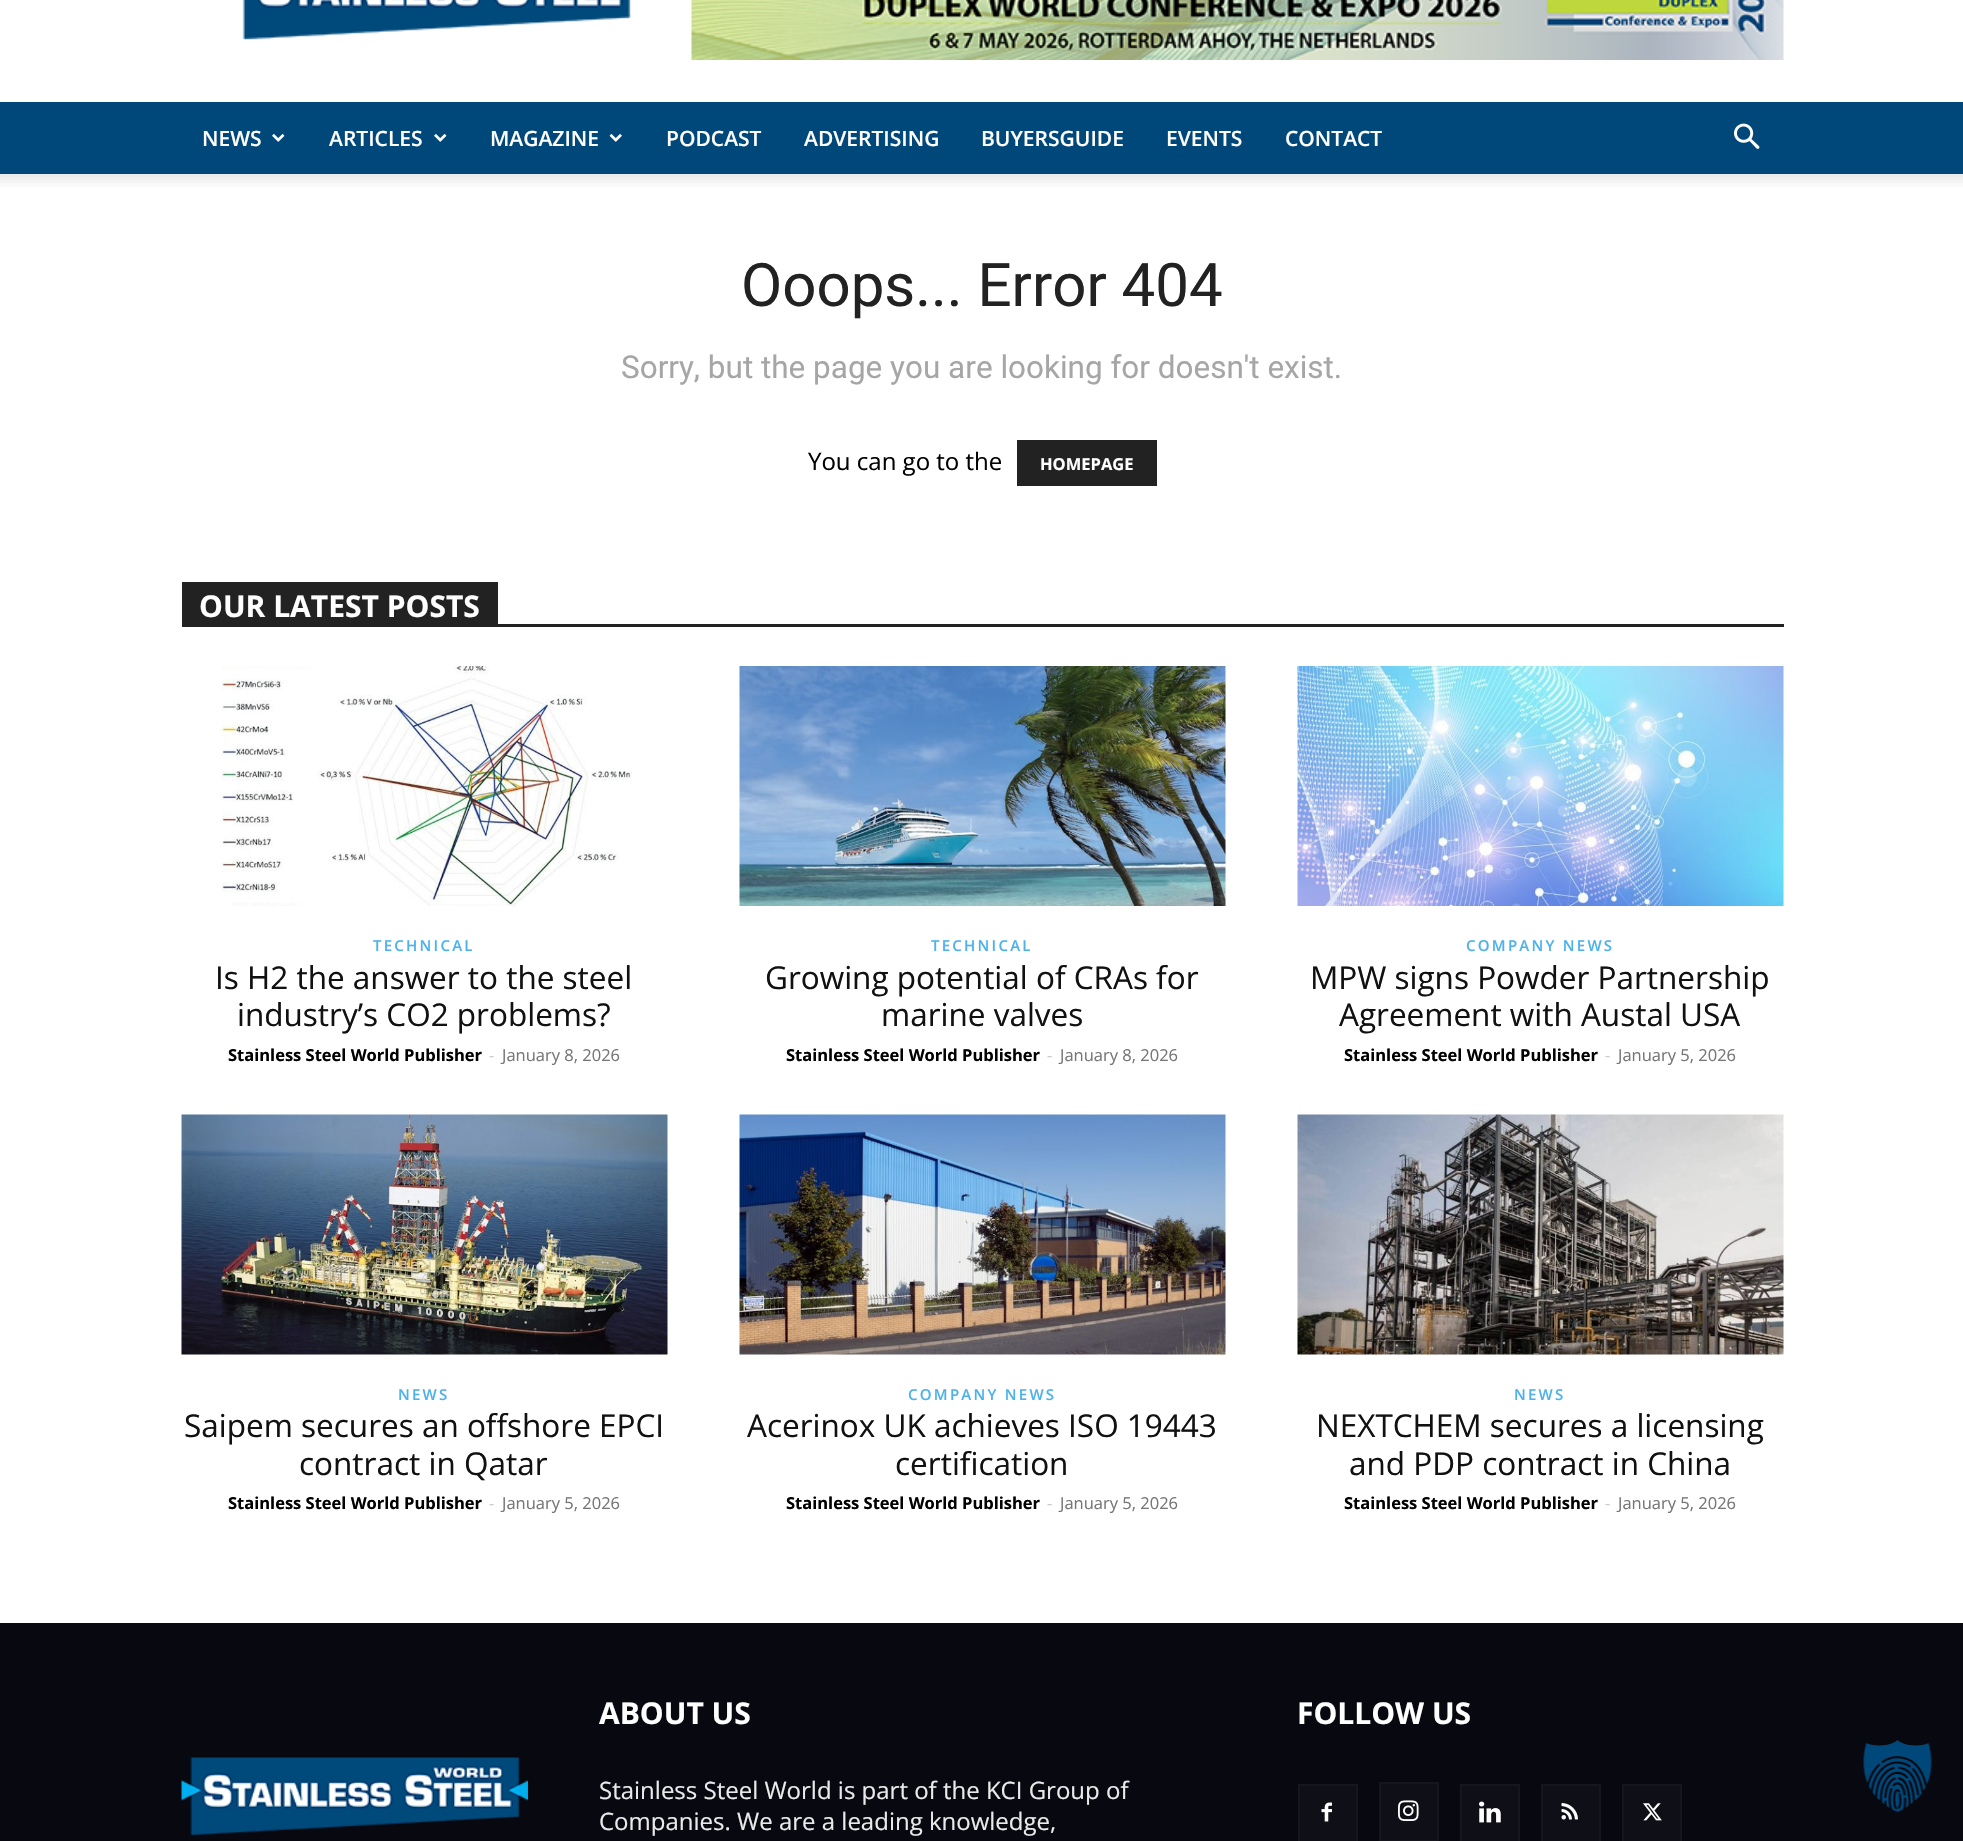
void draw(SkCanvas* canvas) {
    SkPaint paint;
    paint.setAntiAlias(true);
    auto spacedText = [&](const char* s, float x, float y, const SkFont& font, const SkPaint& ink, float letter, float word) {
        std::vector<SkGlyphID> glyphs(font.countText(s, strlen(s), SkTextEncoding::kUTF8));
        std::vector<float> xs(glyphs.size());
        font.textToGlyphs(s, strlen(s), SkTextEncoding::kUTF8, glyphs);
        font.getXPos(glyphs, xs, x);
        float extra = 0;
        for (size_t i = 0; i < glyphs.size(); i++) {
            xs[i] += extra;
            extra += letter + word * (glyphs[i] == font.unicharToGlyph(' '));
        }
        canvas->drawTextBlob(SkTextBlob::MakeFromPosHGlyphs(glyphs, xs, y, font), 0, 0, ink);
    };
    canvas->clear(0xFFFFFFFF);
    canvas->drawImageRect(SkImages::DeferredFromEncodedData(SkData::MakeFromFileName("img1.png")), SkRect::MakeXYWH(242, 0, 389, 40), SkSamplingOptions());
    canvas->drawImageRect(SkImages::DeferredFromEncodedData(SkData::MakeFromFileName("img2.png")), SkRect::MakeXYWH(691, 0, 1093, 60), SkSamplingOptions());
    paint.setColor(0xFF00487A);
    canvas->drawRect(SkRect::MakeXYWH(0, 102, 1963, 72), paint);
    SkFont font1(fontMgr->matchFamilyStyle("Open Sans", SkFontStyle(600, SkFontStyle::kNormal_Width, SkFontStyle::kUpright_Slant)), 21);
    font1.setSubpixel(true);
    paint.setColor(0xFFFFFFFF);
    canvas->drawString("NEWS", 202, 146, font1, paint);
    canvas->drawImageRect(SkImages::DeferredFromEncodedData(SkData::MakeFromFileName("img3.png")), SkRect::MakeXYWH(272, 134, 13, 8), SkSamplingOptions());
    canvas->drawString("ARTICLES", 329, 146, font1, paint);
    canvas->drawImageRect(SkImages::DeferredFromEncodedData(SkData::MakeFromFileName("img3.png")), SkRect::MakeXYWH(434, 134, 13, 8), SkSamplingOptions());
    canvas->drawString("MAGAZINE", 490, 146, font1, paint);
    canvas->drawImageRect(SkImages::DeferredFromEncodedData(SkData::MakeFromFileName("img4.png")), SkRect::MakeXYWH(609, 134, 13, 8), SkSamplingOptions());
    canvas->drawString("PODCAST", 666, 146, font1, paint);
    canvas->drawString("ADVERTISING", 804, 146, font1, paint);
    canvas->drawString("BUYERSGUIDE", 981, 146, font1, paint);
    canvas->drawString("EVENTS", 1166, 146, font1, paint);
    canvas->drawString("CONTACT", 1285, 146, font1, paint);
    canvas->drawImageRect(SkImages::DeferredFromEncodedData(SkData::MakeFromFileName("img5.png")), SkRect::MakeXYWH(1734, 123, 26, 26), SkSamplingOptions());
    canvas->drawImageRect(SkImages::DeferredFromEncodedData(SkData::MakeFromFileName("img6.png")), SkRect::MakeXYWH(0, 174, 1963, 13), SkSamplingOptions());
    SkFont font2(fontMgr->matchFamilyStyle("Roboto", SkFontStyle::Normal()), 60);
    font2.setSubpixel(true);
    paint.setColor(0xFF222222);
    canvas->drawString("Ooops... Error 404", 741, 306, font2, paint);
    SkFont font3(fontMgr->matchFamilyStyle("Roboto", SkFontStyle::Normal()), 31.5f);
    font3.setSubpixel(true);
    paint.setColor(0xFFA6A6A6);
    canvas->drawString("Sorry, but the page you are looking for doesn't exist.", 621, 378, font3, paint);
    SkFont font4(fontMgr->matchFamilyStyle("Open Sans", SkFontStyle::Normal()), 24);
    font4.setSubpixel(true);
    paint.setColor(0xFF000000);
    canvas->drawString("You can go to the", 808, 470, font4, paint);
    paint.setColor(0xFF222222);
    canvas->drawRect(SkRect::MakeXYWH(1017, 440, 140, 46), paint);
    SkFont font5(fontMgr->matchFamilyStyle("Open Sans", SkFontStyle::Bold()), 16.5f);
    font5.setSubpixel(true);
    paint.setColor(0xFFFFFFFF);
    canvas->drawString("HOMEPAGE", 1040, 470, font5, paint);
    paint.setColor(0xFF222222);
    canvas->drawRect(SkRect::MakeXYWH(182, 624, 1602, 3), paint);
    canvas->drawRect(SkRect::MakeXYWH(182, 582, 316, 42), paint);
    SkFont font6(fontMgr->matchFamilyStyle("Open Sans", SkFontStyle::Bold()), 30);
    font6.setSubpixel(true);
    paint.setColor(0xFFFFFFFF);
    canvas->drawString("OUR LATEST POSTS", 199, 617, font6, paint);
    canvas->drawImageRect(SkImages::DeferredFromEncodedData(SkData::MakeFromFileName("img7.png")), SkRect::MakeXYWH(221, 666, 411, 240), SkSamplingOptions());
    SkFont font7(fontMgr->matchFamilyStyle("Open Sans", SkFontStyle(600, SkFontStyle::kNormal_Width, SkFontStyle::kUpright_Slant)), 15);
    font7.setSubpixel(true);
    paint.setColor(0xFF4DB2EC);
    spacedText("TECHNICAL", 373, 951, font7, paint, 2.25f, 0);
    SkFont font8(fontMgr->matchFamilyStyle("Open Sans", SkFontStyle::Normal()), 31.5f);
    font8.setSubpixel(true);
    paint.setColor(0xFF111111);
    canvas->drawString("Is H2 the answer to the steel", 215, 989, font8, paint);
    canvas->drawString("industry’s CO2 problems?", 237, 1026, font8, paint);
    paint.setColor(0xFF000000);
    canvas->drawString("Stainless Steel World Publisher", 228, 1061, font5, paint);
    SkFont font9(fontMgr->matchFamilyStyle("Open Sans", SkFontStyle::Normal()), 16.5f);
    font9.setSubpixel(true);
    paint.setColor(0xFFCCCCCC);
    canvas->drawString("-", 489, 1061, font9, paint);
    paint.setColor(0xFF767676);
    canvas->drawString("January 8, 2026", 502, 1061, font9, paint);
    canvas->drawImageRect(SkImages::DeferredFromEncodedData(SkData::MakeFromFileName("img8.png")), SkRect::MakeXYWH(739, 666, 487, 240), SkSamplingOptions());
    paint.setColor(0xFF4DB2EC);
    spacedText("TECHNICAL", 931, 951, font7, paint, 2.25f, 0);
    paint.setColor(0xFF111111);
    canvas->drawString("Growing potential of CRAs for", 765, 989, font8, paint);
    canvas->drawString("marine valves", 881, 1026, font8, paint);
    paint.setColor(0xFF000000);
    canvas->drawString("Stainless Steel World Publisher", 786, 1061, font5, paint);
    paint.setColor(0xFFCCCCCC);
    canvas->drawString("-", 1047, 1061, font9, paint);
    paint.setColor(0xFF767676);
    canvas->drawString("January 8, 2026", 1060, 1061, font9, paint);
    canvas->drawImageRect(SkImages::DeferredFromEncodedData(SkData::MakeFromFileName("img9.png")), SkRect::MakeXYWH(1297, 666, 487, 240), SkSamplingOptions());
    paint.setColor(0xFF4DB2EC);
    spacedText("COMPANY NEWS", 1466, 951, font7, paint, 2.25f, 0);
    paint.setColor(0xFF111111);
    canvas->drawString("MPW signs Powder Partnership", 1310, 989, font8, paint);
    canvas->drawString("Agreement with Austal USA", 1339, 1026, font8, paint);
    paint.setColor(0xFF000000);
    canvas->drawString("Stainless Steel World Publisher", 1344, 1061, font5, paint);
    paint.setColor(0xFFCCCCCC);
    canvas->drawString("-", 1605, 1061, font9, paint);
    paint.setColor(0xFF767676);
    canvas->drawString("January 5, 2026", 1618, 1061, font9, paint);
    canvas->drawImageRect(SkImages::DeferredFromEncodedData(SkData::MakeFromFileName("img10.png")), SkRect::MakeXYWH(181, 1114, 487, 241), SkSamplingOptions());
    paint.setColor(0xFF4DB2EC);
    spacedText("NEWS", 398, 1400, font7, paint, 2.25f, 0);
    paint.setColor(0xFF111111);
    canvas->drawString("Saipem secures an offshore EPCI", 184, 1437, font8, paint);
    canvas->drawString("contract in Qatar", 299, 1475, font8, paint);
    paint.setColor(0xFF000000);
    canvas->drawString("Stainless Steel World Publisher", 228, 1509, font5, paint);
    paint.setColor(0xFFCCCCCC);
    canvas->drawString("-", 489, 1509, font9, paint);
    paint.setColor(0xFF767676);
    canvas->drawString("January 5, 2026", 502, 1509, font9, paint);
    canvas->drawImageRect(SkImages::DeferredFromEncodedData(SkData::MakeFromFileName("img11.png")), SkRect::MakeXYWH(739, 1114, 487, 241), SkSamplingOptions());
    paint.setColor(0xFF4DB2EC);
    spacedText("COMPANY NEWS", 908, 1400, font7, paint, 2.25f, 0);
    paint.setColor(0xFF111111);
    canvas->drawString("Acerinox UK achieves ISO 19443", 747, 1437, font8, paint);
    canvas->drawString("certification", 895, 1475, font8, paint);
    paint.setColor(0xFF000000);
    canvas->drawString("Stainless Steel World Publisher", 786, 1509, font5, paint);
    paint.setColor(0xFFCCCCCC);
    canvas->drawString("-", 1047, 1509, font9, paint);
    paint.setColor(0xFF767676);
    canvas->drawString("January 5, 2026", 1060, 1509, font9, paint);
    canvas->drawImageRect(SkImages::DeferredFromEncodedData(SkData::MakeFromFileName("img12.png")), SkRect::MakeXYWH(1297, 1114, 487, 241), SkSamplingOptions());
    paint.setColor(0xFF4DB2EC);
    spacedText("NEWS", 1514, 1400, font7, paint, 2.25f, 0);
    paint.setColor(0xFF111111);
    canvas->drawString("NEXTCHEM secures a licensing", 1316, 1437, font8, paint);
    canvas->drawString("and PDP contract in China", 1349, 1475, font8, paint);
    paint.setColor(0xFF000000);
    canvas->drawString("Stainless Steel World Publisher", 1344, 1509, font5, paint);
    paint.setColor(0xFFCCCCCC);
    canvas->drawString("-", 1605, 1509, font9, paint);
    paint.setColor(0xFF767676);
    canvas->drawString("January 5, 2026", 1618, 1509, font9, paint);
    paint.setColor(0xFF080810);
    canvas->drawRect(SkRect::MakeXYWH(0, 1623, 1963, 218), paint);
    paint.setColor(0xFFFFFFFF);
    canvas->drawString("ABOUT US", 599, 1724, font6, paint);
    paint.setColor(0xFFEAEAEA);
    canvas->drawString("Stainless Steel World is part of the KCI Group of", 599, 1799, font4, paint);
    canvas->drawString("Companies. We are a leading knowledge,", 599, 1830, font4, paint);
    paint.setColor(0xFFFFFFFF);
    canvas->drawString("FOLLOW US", 1297, 1724, font6, paint);
    paint.setColor(0xFF0F0F17);
    canvas->drawRect(SkRect::MakeXYWH(1300, 1786, 56, 55), paint);
    canvas->drawImageRect(SkImages::DeferredFromEncodedData(SkData::MakeFromFileName("img13.png")), SkRect::MakeXYWH(1321, 1802, 11, 20), SkSamplingOptions());
    paint.setStyle(SkPaint::kStroke_Style);
    paint.setStrokeWidth(2);
    paint.setColor(0xFF16161E);
    canvas->drawRect(SkRect::MakeXYWH(1299, 1785, 58, 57), paint);
    paint.setStyle(SkPaint::kFill_Style);
    paint.setColor(0xFF0F0F17);
    canvas->drawRect(SkRect::MakeXYWH(1381, 1784, 56, 56), paint);
    canvas->drawImageRect(SkImages::DeferredFromEncodedData(SkData::MakeFromFileName("img14.png")), SkRect::MakeXYWH(1398, 1800, 21, 21), SkSamplingOptions());
    paint.setStyle(SkPaint::kStroke_Style);
    paint.setColor(0xFF16161E);
    canvas->drawRect(SkRect::MakeXYWH(1380, 1783, 58, 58), paint);
    paint.setStyle(SkPaint::kFill_Style);
    paint.setColor(0xFF0F0F17);
    canvas->drawRect(SkRect::MakeXYWH(1462, 1786, 56, 55), paint);
    canvas->drawImageRect(SkImages::DeferredFromEncodedData(SkData::MakeFromFileName("img15.png")), SkRect::MakeXYWH(1479, 1801, 22, 22), SkSamplingOptions());
    paint.setStyle(SkPaint::kStroke_Style);
    paint.setColor(0xFF16161E);
    canvas->drawRect(SkRect::MakeXYWH(1461, 1785, 58, 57), paint);
    paint.setStyle(SkPaint::kFill_Style);
    paint.setColor(0xFF0F0F17);
    canvas->drawRect(SkRect::MakeXYWH(1543, 1786, 56, 55), paint);
    canvas->drawImageRect(SkImages::DeferredFromEncodedData(SkData::MakeFromFileName("img16.png")), SkRect::MakeXYWH(1561, 1803, 17, 17), SkSamplingOptions());
    paint.setStyle(SkPaint::kStroke_Style);
    paint.setColor(0xFF16161E);
    canvas->drawRect(SkRect::MakeXYWH(1542, 1785, 58, 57), paint);
    paint.setStyle(SkPaint::kFill_Style);
    paint.setColor(0xFF0F0F17);
    canvas->drawRect(SkRect::MakeXYWH(1624, 1786, 56, 55), paint);
    canvas->drawImageRect(SkImages::DeferredFromEncodedData(SkData::MakeFromFileName("img17.png")), SkRect::MakeXYWH(1643, 1803, 19, 18), SkSamplingOptions());
    paint.setStyle(SkPaint::kStroke_Style);
    paint.setColor(0xFF16161E);
    canvas->drawRect(SkRect::MakeXYWH(1623, 1785, 58, 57), paint);
    canvas->drawImageRect(SkImages::DeferredFromEncodedData(SkData::MakeFromFileName("img18.png")), SkRect::MakeXYWH(181, 1757, 347, 78), SkSamplingOptions());
    canvas->drawImageRect(SkImages::DeferredFromEncodedData(SkData::MakeFromFileName("img19.png")), SkRect::MakeXYWH(1863, 1740, 69, 72), SkSamplingOptions());
}
